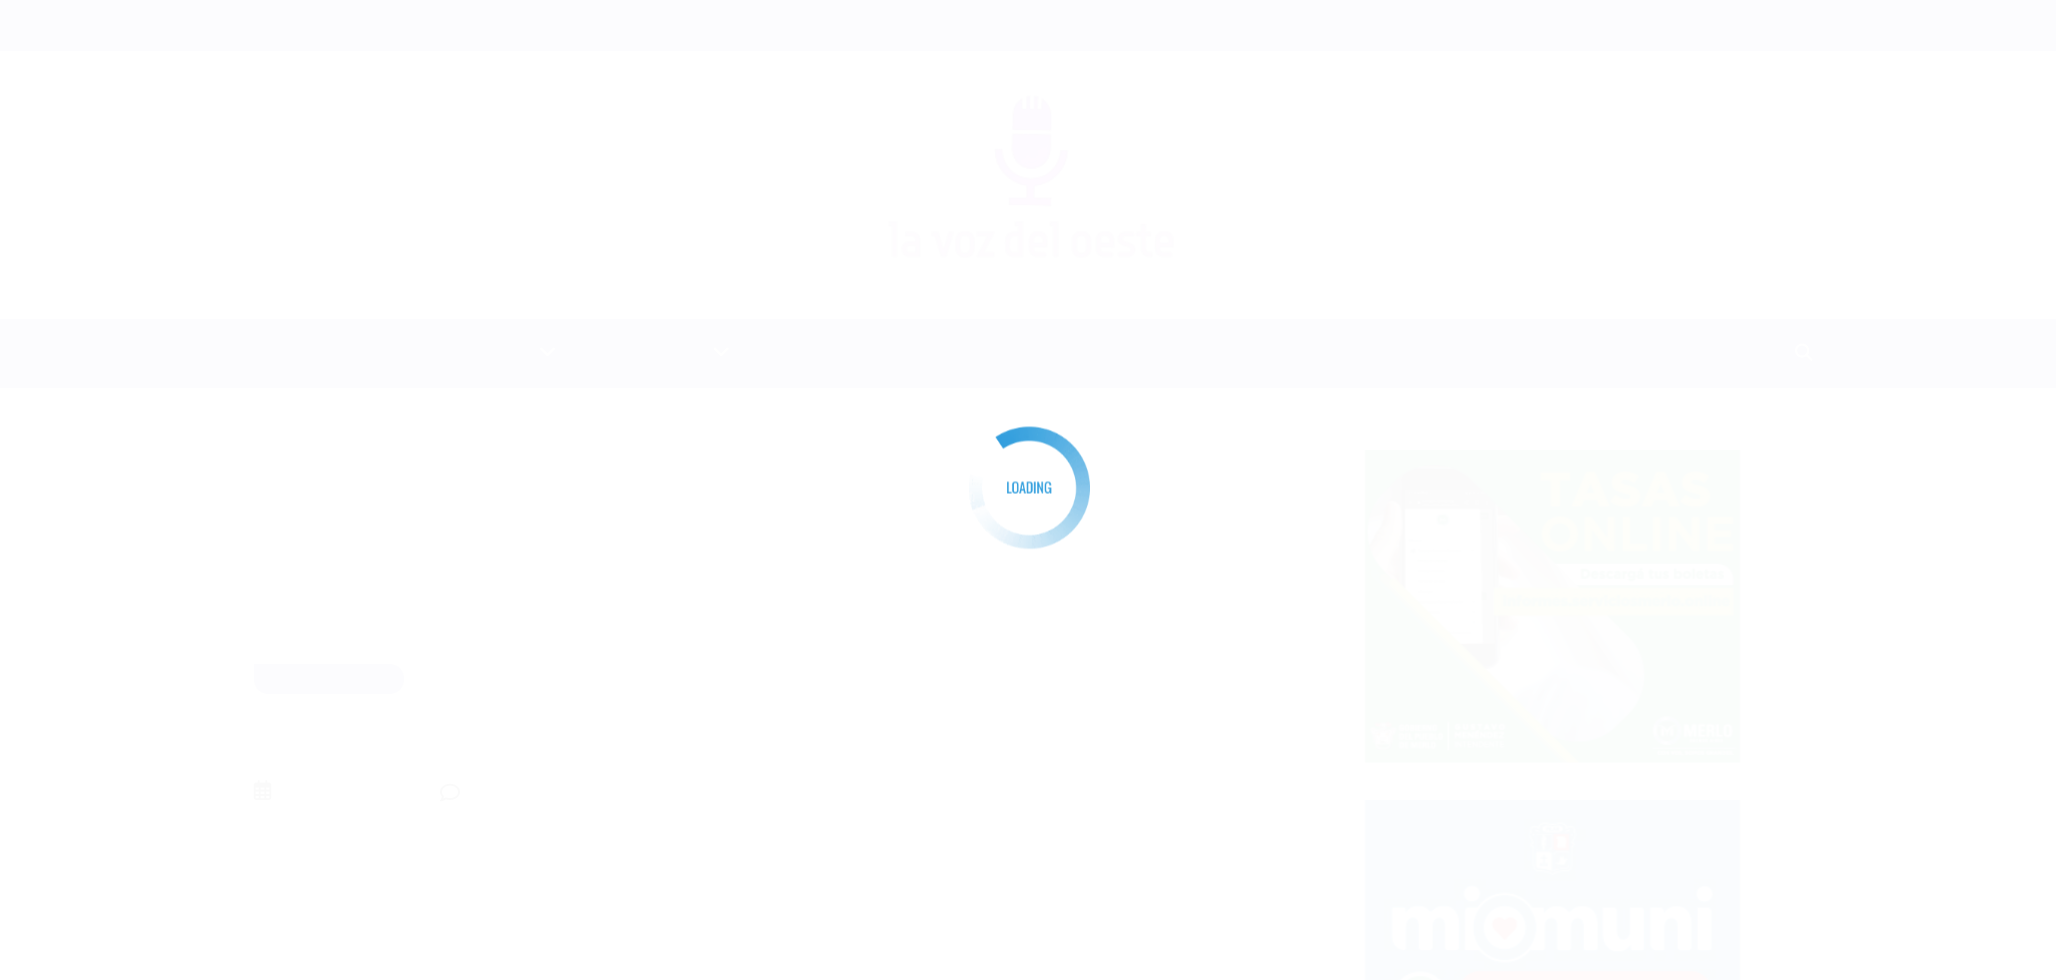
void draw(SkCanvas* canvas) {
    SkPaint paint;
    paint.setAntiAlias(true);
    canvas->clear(0xFFFFFFFF);
    paint.setColor(0xFFFCFCFE);
    canvas->drawRect(SkRect::MakeXYWH(0, 0, 2056, 51), paint);
    canvas->drawImageRect(SkImages::DeferredFromEncodedData(SkData::MakeFromFileName("img1.png")), SkRect::MakeXYWH(887, 95, 288, 165), SkSamplingOptions());
    canvas->drawRect(SkRect::MakeXYWH(0, 319, 2056, 69), paint);
    canvas->drawImageRect(SkImages::DeferredFromEncodedData(SkData::MakeFromFileName("img2.png")), SkRect::MakeXYWH(540, 347, 15, 10), SkSamplingOptions());
    canvas->drawImageRect(SkImages::DeferredFromEncodedData(SkData::MakeFromFileName("img3.png")), SkRect::MakeXYWH(713, 347, 16, 10), SkSamplingOptions());
    canvas->drawImageRect(SkImages::DeferredFromEncodedData(SkData::MakeFromFileName("img4.png")), SkRect::MakeXYWH(1795, 343, 18, 18), SkSamplingOptions());
    canvas->drawImageRect(SkImages::DeferredFromEncodedData(SkData::MakeFromFileName("img5.png")), SkRect::MakeXYWH(969, 426, 121, 124), SkSamplingOptions());
    canvas->drawPath(SkPathBuilder().moveTo(254, 664).lineTo(389, 664).cubicTo(397.5f, 664, 404, 670.5f, 404, 679).cubicTo(404, 687.5f, 397.5f, 694, 389, 694).lineTo(269, 694).cubicTo(260.5f, 694, 254, 687.5f, 254, 679).close().detach(), paint);
    canvas->drawImageRect(SkImages::DeferredFromEncodedData(SkData::MakeFromFileName("img6.png")), SkRect::MakeXYWH(253, 780, 19, 20), SkSamplingOptions());
    canvas->drawImageRect(SkImages::DeferredFromEncodedData(SkData::MakeFromFileName("img7.png")), SkRect::MakeXYWH(440, 783, 20, 19), SkSamplingOptions());
    canvas->drawImageRect(SkImages::DeferredFromEncodedData(SkData::MakeFromFileName("img8.png")), SkRect::MakeXYWH(1364, 450, 377, 313), SkSamplingOptions());
    canvas->drawImageRect(SkImages::DeferredFromEncodedData(SkData::MakeFromFileName("img9.png")), SkRect::MakeXYWH(1364, 800, 377, 180), SkSamplingOptions());
}
